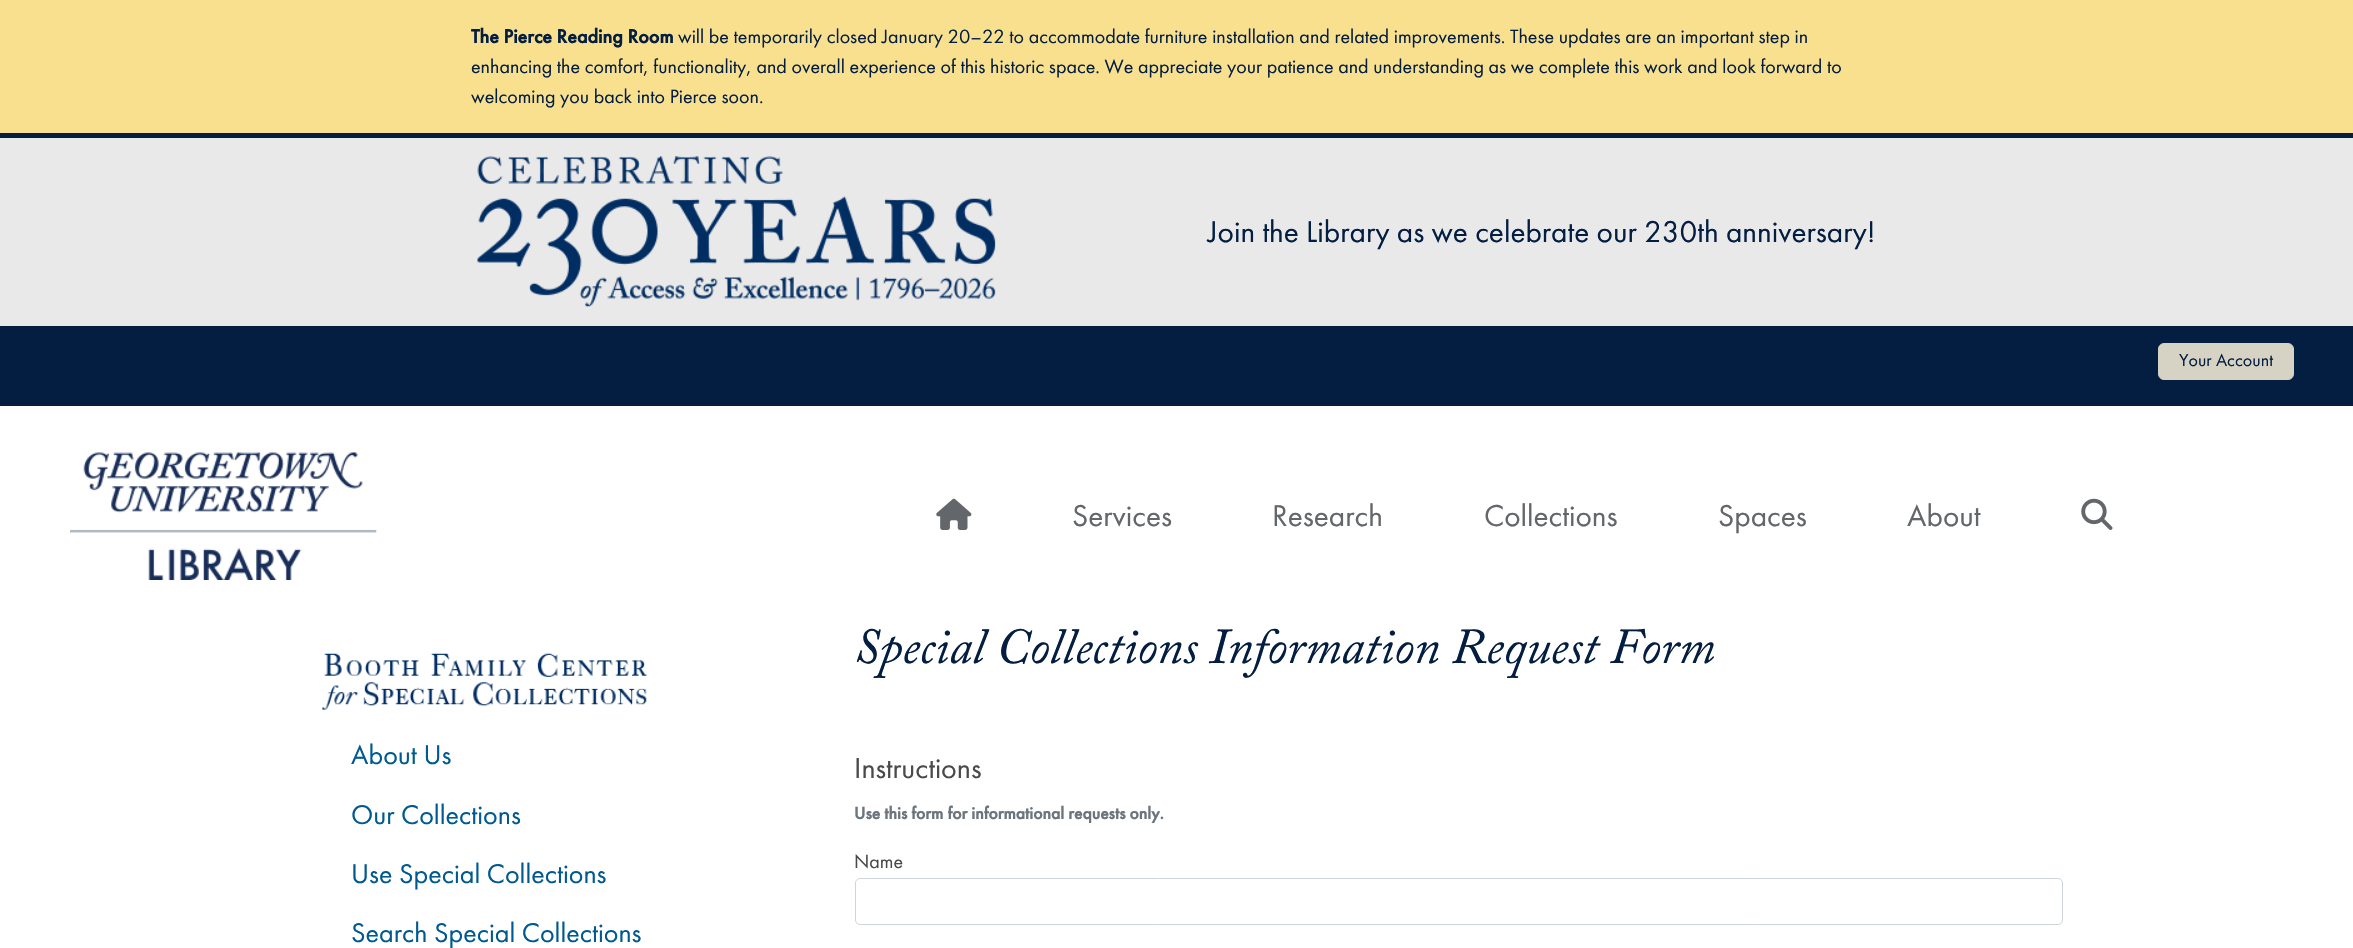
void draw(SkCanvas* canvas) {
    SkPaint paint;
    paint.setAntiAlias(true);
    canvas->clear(0xFFFFFFFF);
    paint.setColor(0xFF041E42);
    canvas->drawRect(SkRect::MakeXYWH(0, 133, 2353, 273), paint);
    paint.setColor(0xFFF8E08E);
    canvas->drawRect(SkRect::MakeXYWH(0, 0, 2353, 133), paint);
    SkFont font1(fontMgr->matchFamilyStyle("Futura PT", SkFontStyle::Bold()), 20);
    font1.setSubpixel(true);
    paint.setColor(0xFF041E42);
    canvas->drawString("The Pierce Reading Room", 471, 43, font1, paint);
    SkFont font2(fontMgr->matchFamilyStyle("Futura PT", SkFontStyle::Normal()), 20);
    font2.setSubpixel(true);
    canvas->drawString("will be temporarily closed January 20–22 to accommodate furniture installation and related improvements. These updates are an important step in", 678, 43, font2, paint);
    canvas->drawString("enhancing the comfort, functionality, and overall experience of this historic space. We appreciate your patience and understanding as we complete this work and look forward to", 471, 73, font2, paint);
    canvas->drawString("welcoming you back into Pierce soon.", 471, 103, font2, paint);
    paint.setColor(0xFFE9E9E9);
    canvas->drawRect(SkRect::MakeXYWH(0, 138, 2353, 188), paint);
    canvas->drawImageRect(SkImages::DeferredFromEncodedData(SkData::MakeFromFileName("img1.png")), SkRect::MakeXYWH(477, 156, 519, 151), SkSamplingOptions());
    SkFont font3(fontMgr->matchFamilyStyle("Futura PT", SkFontStyle::Normal()), 31.25f);
    font3.setSubpixel(true);
    paint.setColor(0xFF041E42);
    canvas->drawString("Join the Library as we celebrate our 230th anniversary!", 1208, 242, font3, paint);
    paint.setColor(0xFFD6D2C4);
    canvas->drawRoundRect(SkRect::MakeXYWH(2158.5f, 343.5f, 135, 36), 5.5f, 5.5f, paint);
    paint.setStyle(SkPaint::kStroke_Style);
    paint.setStrokeWidth(1);
    canvas->drawRoundRect(SkRect::MakeXYWH(2158.5f, 343.5f, 135, 36), 5.5f, 5.5f, paint);
    SkFont font4(fontMgr->matchFamilyStyle("Futura PT", SkFontStyle::Normal()), 18);
    font4.setSubpixel(true);
    paint.setStyle(SkPaint::kFill_Style);
    paint.setColor(0xFF041E42);
    canvas->drawString("Your Account", 2179, 366, font4, paint);
    canvas->drawImageRect(SkImages::DeferredFromEncodedData(SkData::MakeFromFileName("img2.png")), SkRect::MakeXYWH(70, 452, 307, 128), SkSamplingOptions());
    canvas->drawImageRect(SkImages::DeferredFromEncodedData(SkData::MakeFromFileName("img3.png")), SkRect::MakeXYWH(936, 498, 36, 32), SkSamplingOptions());
    paint.setColor(0xFF63666A);
    canvas->drawString("Services", 1072, 526, font3, paint);
    canvas->drawString("Research", 1272, 526, font3, paint);
    canvas->drawString("Collections", 1484, 526, font3, paint);
    canvas->drawString("Spaces", 1718, 526, font3, paint);
    canvas->drawString("About", 1907, 526, font3, paint);
    canvas->drawImageRect(SkImages::DeferredFromEncodedData(SkData::MakeFromFileName("img4.png")), SkRect::MakeXYWH(2081, 498, 32, 32), SkSamplingOptions());
    canvas->drawImageRect(SkImages::DeferredFromEncodedData(SkData::MakeFromFileName("img5.png")), SkRect::MakeXYWH(322, 653, 326, 57), SkSamplingOptions());
    SkFont font5(fontMgr->matchFamilyStyle("Futura PT", SkFontStyle::Normal()), 28);
    font5.setSubpixel(true);
    paint.setColor(0xFF005A8F);
    canvas->drawString("About Us", 351, 764, font5, paint);
    canvas->drawString("Our Collections", 351, 824, font5, paint);
    canvas->drawString("Use Special Collections", 351, 883, font5, paint);
    canvas->drawString("Search Special Collections", 351, 942, font5, paint);
    SkFont font6(fontMgr->matchFamilyStyle("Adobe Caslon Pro", SkFontStyle::Italic()), 50);
    font6.setSubpixel(true);
    paint.setColor(0xFF041E42);
    canvas->drawString("Special Collections Information Request Form", 854, 663, font6, paint);
    SkFont font7(fontMgr->matchFamilyStyle("Futura PT", SkFontStyle::Normal()), 30);
    font7.setSubpixel(true);
    paint.setColor(0xFF4A4A4A);
    canvas->drawString("Instructions", 854, 778, font7, paint);
    SkFont font8(fontMgr->matchFamilyStyle("Futura PT", SkFontStyle::Bold()), 17.5f);
    font8.setSubpixel(true);
    paint.setColor(0xFF6C757D);
    canvas->drawString("Use this form for informational requests only.", 854, 819, font8, paint);
    paint.setColor(0xFF4A4A4A);
    canvas->drawString("Name", 854, 868, font2, paint);
    paint.setStyle(SkPaint::kStroke_Style);
    paint.setColor(0xFFCED4DA);
    canvas->drawRoundRect(SkRect::MakeXYWH(855.5f, 878.5f, 1207, 46), 4.5f, 4.5f, paint);
}
